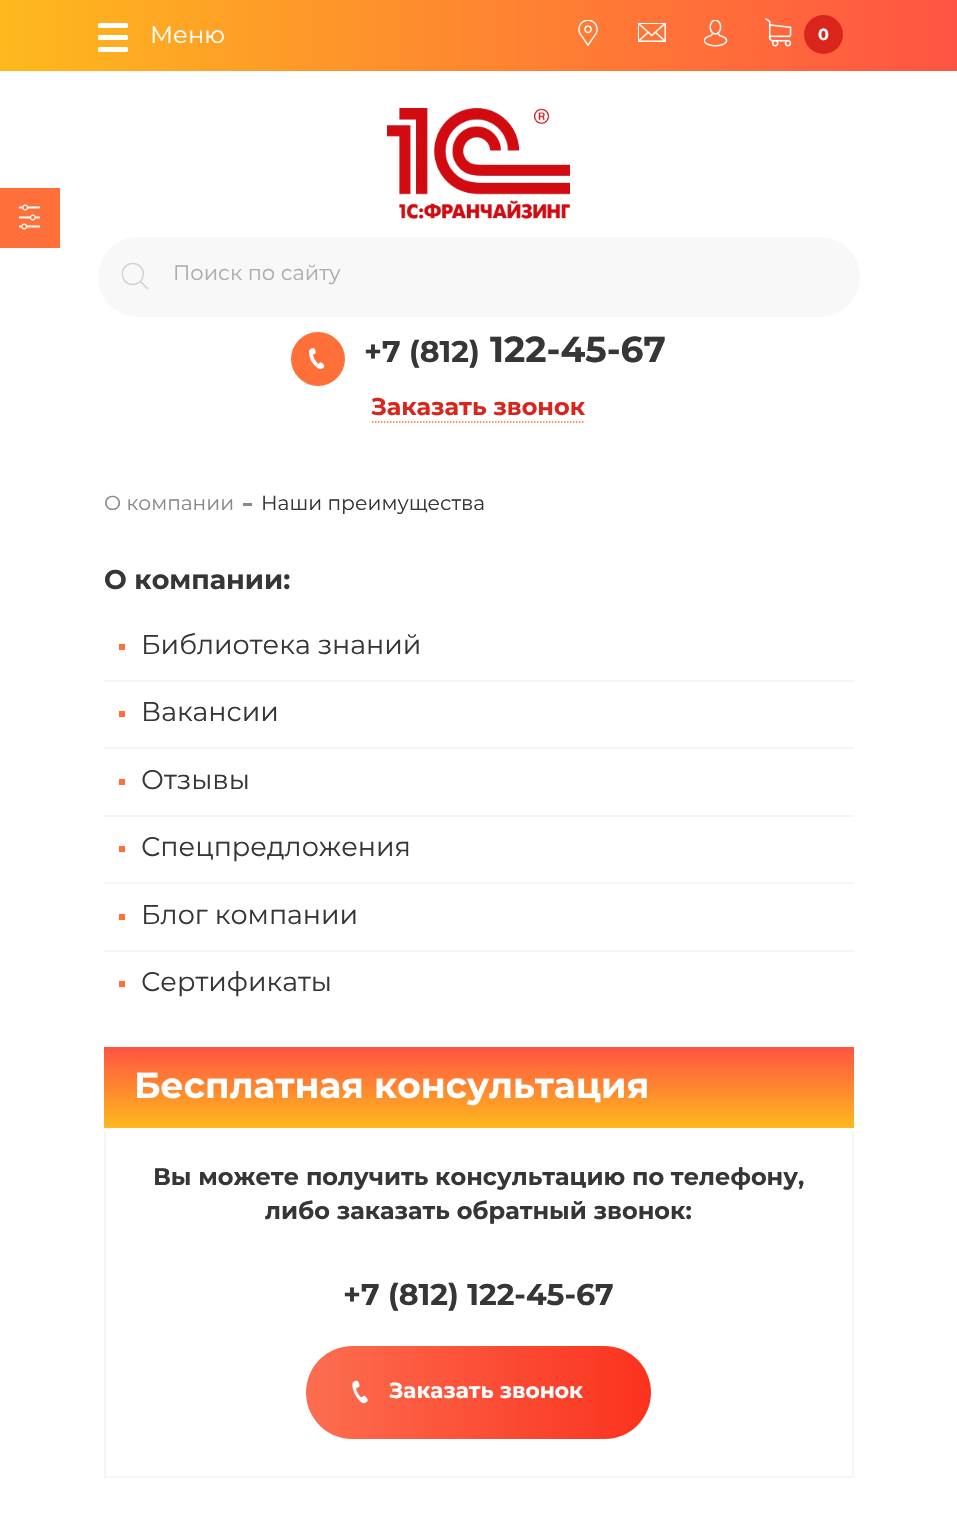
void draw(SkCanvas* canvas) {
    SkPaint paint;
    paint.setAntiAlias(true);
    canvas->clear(0xFFFFFFFF);
    paint.setColor(0xFFFF6F39);
    canvas->drawRect(SkRect::MakeXYWH(0, 188, 60, 60), paint);
    canvas->drawImageRect(SkImages::DeferredFromEncodedData(SkData::MakeFromFileName("img1.png")), SkRect::MakeXYWH(19, 204, 21, 26), SkSamplingOptions());
    {
        const SkColor colors[] = {0xFFFEB91D, 0xFFFF5443};
        const float stops[] = {0, 1};
        const SkPoint ends[] = {{0, 35}, {957, 35}};
        paint.setShader(SkGradientShader::MakeLinear(ends, colors, stops, 2, SkTileMode::kClamp));
        paint.setAlpha(255);
    }
    canvas->drawRect(SkRect::MakeXYWH(0, 0, 957, 71), paint);
    paint.setShader(nullptr);
    paint.setColor(0xFFFFFFFF);
    canvas->drawRoundRect(SkRect::MakeXYWH(98, 23, 30, 5), 1.5f, 1.5f, paint);
    canvas->drawRoundRect(SkRect::MakeXYWH(98, 35, 30, 5), 1.5f, 1.5f, paint);
    canvas->drawRoundRect(SkRect::MakeXYWH(98, 47, 30, 5), 1.5f, 1.5f, paint);
    SkFont font1(fontMgr->matchFamilyStyle("Montserrat", SkFontStyle::Normal()), 24);
    font1.setSubpixel(true);
    canvas->drawString("Меню", 150, 43, font1, paint);
    canvas->drawImageRect(SkImages::DeferredFromEncodedData(SkData::MakeFromFileName("img2.png")), SkRect::MakeXYWH(578, 20, 20, 27), SkSamplingOptions());
    canvas->drawImageRect(SkImages::DeferredFromEncodedData(SkData::MakeFromFileName("img3.png")), SkRect::MakeXYWH(638, 23, 28, 19), SkSamplingOptions());
    canvas->drawImageRect(SkImages::DeferredFromEncodedData(SkData::MakeFromFileName("img4.png")), SkRect::MakeXYWH(704, 20, 24, 27), SkSamplingOptions());
    canvas->drawImageRect(SkImages::DeferredFromEncodedData(SkData::MakeFromFileName("img5.png")), SkRect::MakeXYWH(765, 18, 27, 29), SkSamplingOptions());
    paint.setColor(0xFFDA251D);
    canvas->drawCircle(823.5f, 34.5f, 19.5f, paint);
    SkFont font2(fontMgr->matchFamilyStyle("Montserrat", SkFontStyle::Bold()), 16);
    font2.setSubpixel(true);
    paint.setColor(0xFFFFFFFF);
    canvas->drawString("0", 818, 40, font2, paint);
    canvas->drawImageRect(SkImages::DeferredFromEncodedData(SkData::MakeFromFileName("img6.png")), SkRect::MakeXYWH(387, 108, 183, 111), SkSamplingOptions());
    paint.setColor(0xFFF8F8F8);
    canvas->drawRoundRect(SkRect::MakeXYWH(98, 237, 762, 80), 40, 40, paint);
    canvas->drawImageRect(SkImages::DeferredFromEncodedData(SkData::MakeFromFileName("img7.png")), SkRect::MakeXYWH(122, 263, 27, 27), SkSamplingOptions());
    SkFont font3(fontMgr->matchFamilyStyle("Montserrat", SkFontStyle::Normal()), 21);
    font3.setSubpixel(true);
    paint.setColor(0xFFACACAC);
    canvas->drawString("Поиск по сайту", 173, 280, font3, paint);
    paint.setColor(0xFFFF6F39);
    canvas->drawCircle(318, 359, 27, paint);
    canvas->drawImageRect(SkImages::DeferredFromEncodedData(SkData::MakeFromFileName("img8.png")), SkRect::MakeXYWH(309, 348, 16, 21), SkSamplingOptions());
    SkFont font4(fontMgr->matchFamilyStyle("Montserrat", SkFontStyle::Bold()), 30);
    font4.setSubpixel(true);
    paint.setColor(0xFF363636);
    canvas->drawString("+7 (812)", 364, 362, font4, paint);
    SkFont font5(fontMgr->matchFamilyStyle("Montserrat", SkFontStyle::Bold()), 36);
    font5.setSubpixel(true);
    canvas->drawString("122-45-67", 490, 362, font5, paint);
    paint.setStyle(SkPaint::kStroke_Style);
    paint.setStrokeWidth(1.5f);
    paint.setColor(0xFFFF6F39);
    paint.setPathEffect(SkDashPathEffect::Make({{1.5f, 1.5f}}, 0));
    canvas->drawPath(SkPathBuilder().moveTo(372, 422).lineTo(585, 422).detach(), paint);
    paint.setPathEffect(nullptr);
    SkFont font6(fontMgr->matchFamilyStyle("Montserrat", SkFontStyle::Bold()), 24);
    font6.setSubpixel(true);
    paint.setStyle(SkPaint::kFill_Style);
    paint.setColor(0xFFDA251D);
    canvas->drawString("Заказать звонок", 371, 415, font6, paint);
    SkFont font7(fontMgr->matchFamilyStyle("Montserrat", SkFontStyle::Normal()), 20.25f);
    font7.setSubpixel(true);
    paint.setColor(0xFF898989);
    canvas->drawString("О компании", 104, 510, font7, paint);
    canvas->drawRect(SkRect::MakeXYWH(243, 503, 9, 3), paint);
    paint.setColor(0xFF363636);
    canvas->drawString("Наши преимущества", 261, 510, font7, paint);
    SkFont font8(fontMgr->matchFamilyStyle("Montserrat", SkFontStyle::Bold()), 27);
    font8.setSubpixel(true);
    canvas->drawString("О компании:", 104, 589, font8, paint);
    paint.setColor(0xFFF5F5F5);
    canvas->drawRect(SkRect::MakeXYWH(104, 680, 750, 2), paint);
    paint.setColor(0xFFFF6F39);
    canvas->drawRect(SkRect::MakeXYWH(119, 644, 6, 6), paint);
    SkFont font9(fontMgr->matchFamilyStyle("Montserrat", SkFontStyle::Normal()), 27);
    font9.setSubpixel(true);
    paint.setColor(0xFF363636);
    canvas->drawString("Библиотека знаний", 141, 654, font9, paint);
    paint.setColor(0xFFF5F5F5);
    canvas->drawRect(SkRect::MakeXYWH(104, 747, 750, 2), paint);
    paint.setColor(0xFFFF6F39);
    canvas->drawRect(SkRect::MakeXYWH(119, 711, 6, 6), paint);
    paint.setColor(0xFF363636);
    canvas->drawString("Вакансии", 141, 721, font9, paint);
    paint.setColor(0xFFF5F5F5);
    canvas->drawRect(SkRect::MakeXYWH(104, 815, 750, 2), paint);
    paint.setColor(0xFFFF6F39);
    canvas->drawRect(SkRect::MakeXYWH(119, 779, 6, 6), paint);
    paint.setColor(0xFF363636);
    canvas->drawString("Отзывы", 141, 789, font9, paint);
    paint.setColor(0xFFF5F5F5);
    canvas->drawRect(SkRect::MakeXYWH(104, 882, 750, 2), paint);
    paint.setColor(0xFFFF6F39);
    canvas->drawRect(SkRect::MakeXYWH(119, 846, 6, 6), paint);
    paint.setColor(0xFF363636);
    canvas->drawString("Спецпредложения", 141, 856, font9, paint);
    paint.setColor(0xFFF5F5F5);
    canvas->drawRect(SkRect::MakeXYWH(104, 950, 750, 2), paint);
    paint.setColor(0xFFFF6F39);
    canvas->drawRect(SkRect::MakeXYWH(119, 914, 6, 6), paint);
    paint.setColor(0xFF363636);
    canvas->drawString("Блог компании", 141, 924, font9, paint);
    paint.setColor(0xFFFF6F39);
    canvas->drawRect(SkRect::MakeXYWH(119, 981, 6, 6), paint);
    paint.setColor(0xFF363636);
    canvas->drawString("Сертификаты", 141, 991, font9, paint);
    {
        const SkColor colors[] = {0xFFFF5443, 0xFFFEB91D};
        const float stops[] = {0, 1};
        const SkPoint ends[] = {{479, 1047}, {479, 1128}};
        paint.setShader(SkGradientShader::MakeLinear(ends, colors, stops, 2, SkTileMode::kClamp));
        paint.setAlpha(255);
    }
    canvas->drawRect(SkRect::MakeXYWH(104, 1047, 750, 81), paint);
    paint.setShader(nullptr);
    paint.setColor(0xFFFFFFFF);
    canvas->drawString("Бесплатная консультация", 134, 1098, font5, paint);
    paint.setColor(0xFFF5F5F5);
    canvas->drawRect(SkRect::MakeXYWH(852, 1131, 2, 347), paint);
    canvas->drawRect(SkRect::MakeXYWH(104, 1476, 750, 2), paint);
    canvas->drawRect(SkRect::MakeXYWH(104, 1131, 2, 347), paint);
    paint.setColor(0xFF363636);
    canvas->drawString("Вы можете получить консультацию по телефону,", 153, 1185, font6, paint);
    canvas->drawString("либо заказать обратный звонок:", 265, 1219, font6, paint);
    canvas->drawString("+7 (812) 122-45-67", 343, 1305, font4, paint);
    {
        const SkColor colors[] = {0xFFFC6E50, 0xFFFB321E};
        const float stops[] = {0, 1};
        const SkPoint ends[] = {{306, 1392}, {651, 1392}};
        paint.setShader(SkGradientShader::MakeLinear(ends, colors, stops, 2, SkTileMode::kClamp));
        paint.setAlpha(255);
    }
    canvas->drawRoundRect(SkRect::MakeXYWH(306, 1346, 345, 93), 46.5f, 46.5f, paint);
    canvas->drawImageRect(SkImages::DeferredFromEncodedData(SkData::MakeFromFileName("img9.png")), SkRect::MakeXYWH(352, 1380, 16, 24), SkSamplingOptions());
    SkFont font10(fontMgr->matchFamilyStyle("Montserrat", SkFontStyle::Bold()), 21.75f);
    font10.setSubpixel(true);
    paint.setShader(nullptr);
    paint.setColor(0xFFFFFFFF);
    canvas->drawString("Заказать звонок", 389, 1398, font10, paint);
}
